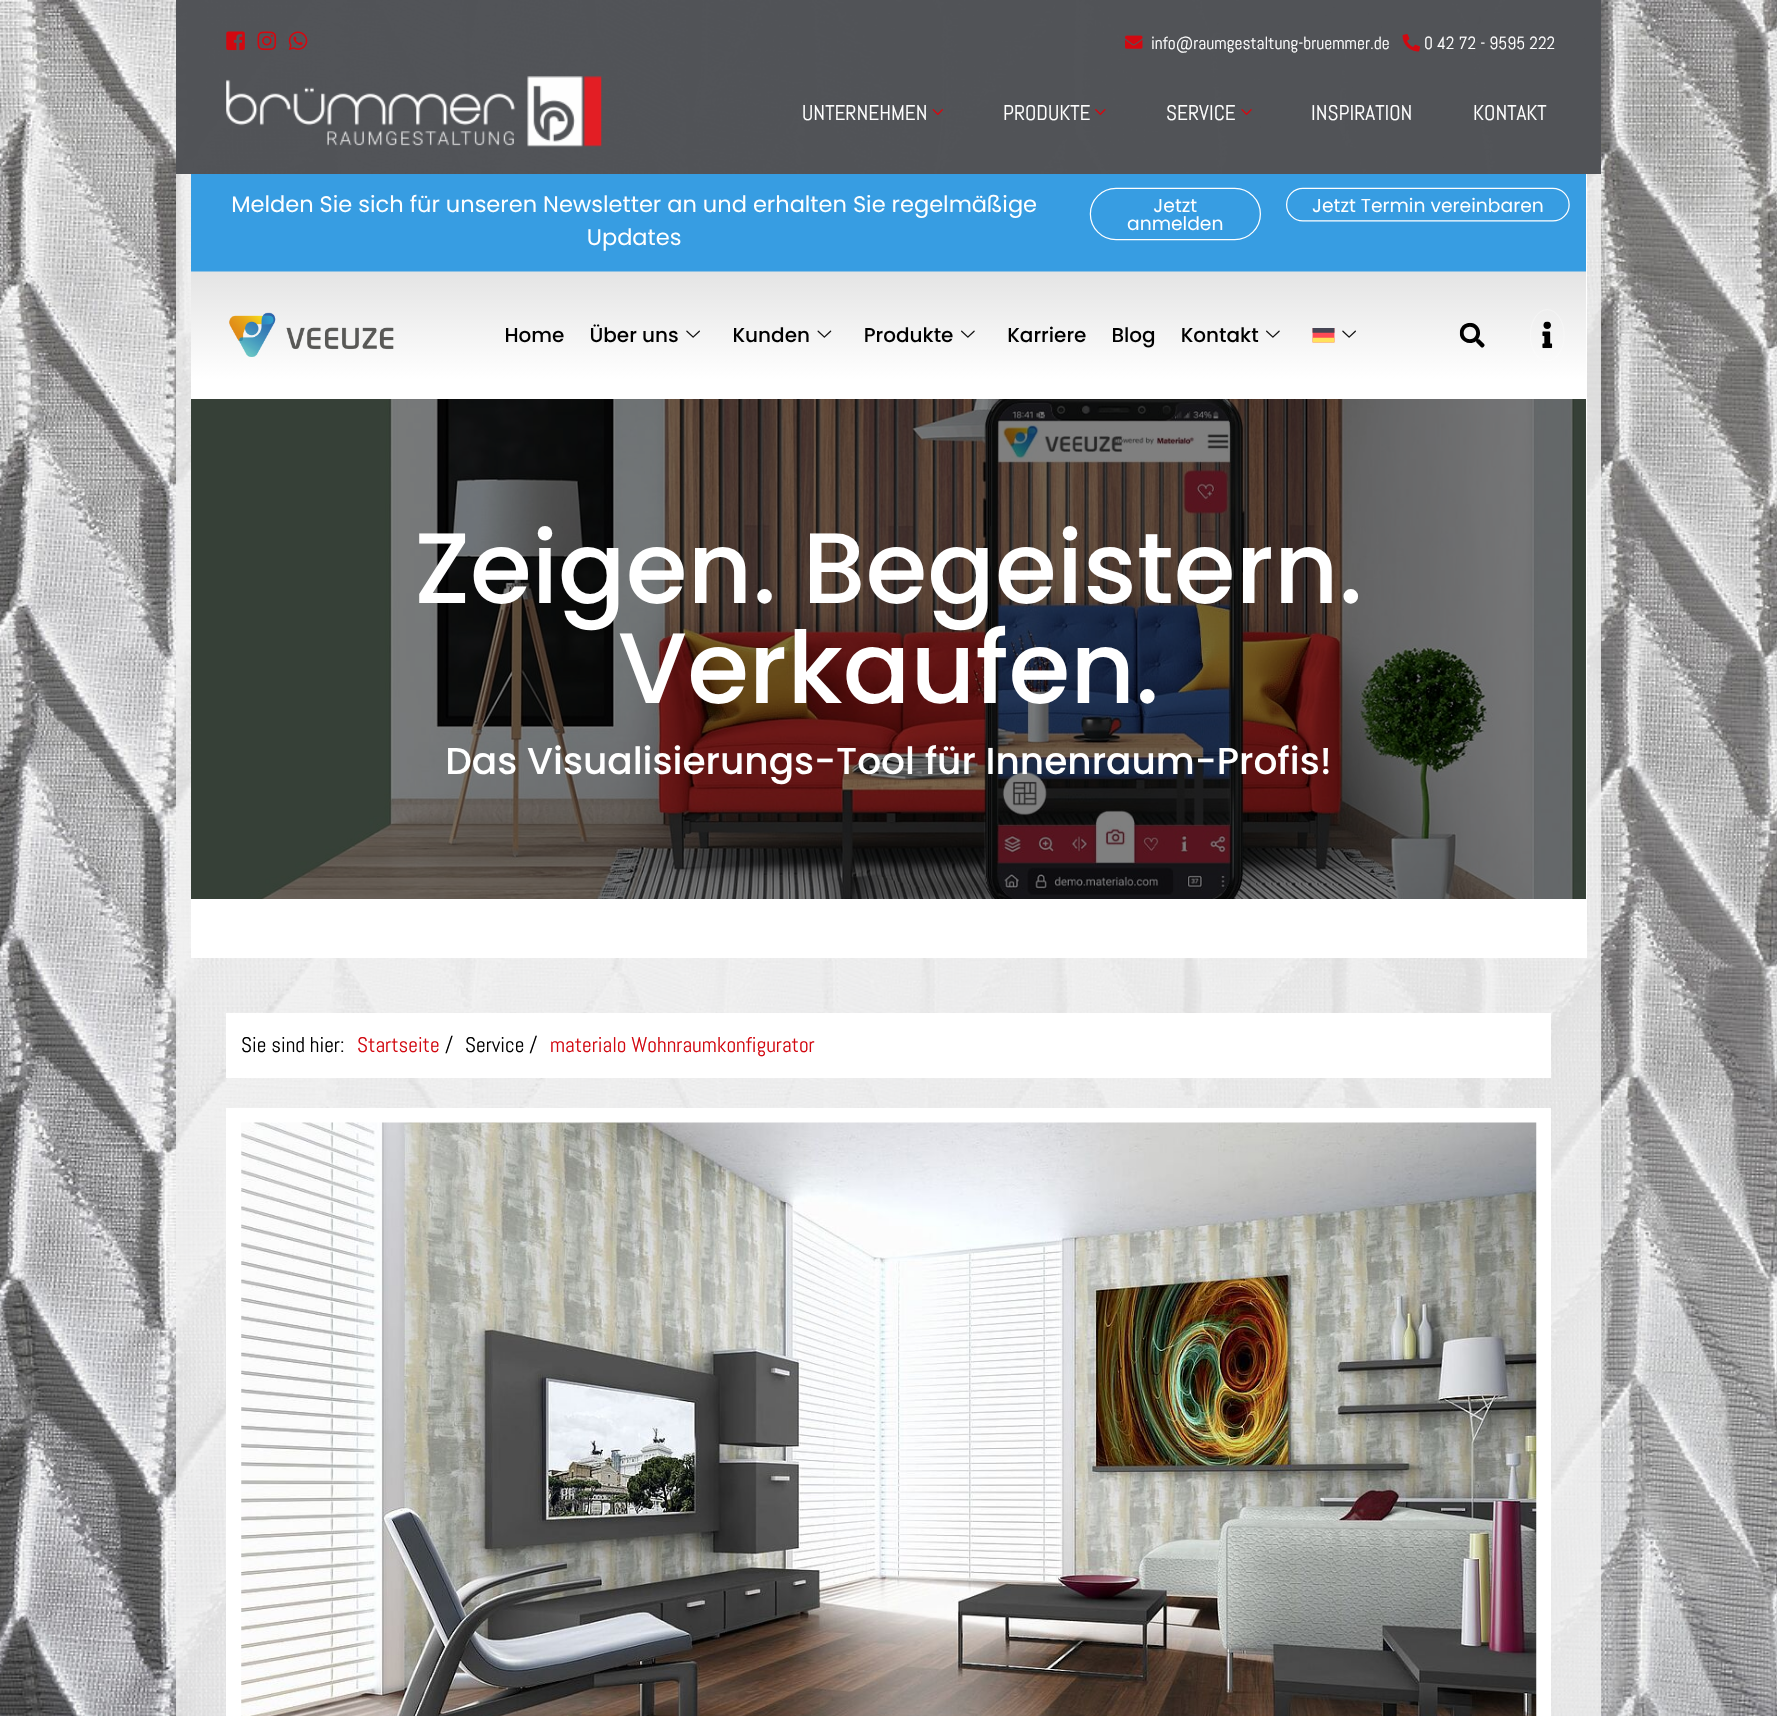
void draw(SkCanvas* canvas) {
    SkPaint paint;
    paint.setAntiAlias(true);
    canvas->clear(0xFFFFFFFF);
    canvas->drawImageRect(SkImages::DeferredFromEncodedData(SkData::MakeFromFileName("img1.png")), SkRect::MakeXYWH(0, 0, 1777, 1716), SkSamplingOptions());
    paint.setColor(0xD9F0F0F0);
    canvas->drawRect(SkRect::MakeXYWH(176, 0, 1425, 1716), paint);
    paint.setColor(0xF2494B4F);
    canvas->drawRect(SkRect::MakeXYWH(176, 0, 1425, 174), paint);
    canvas->drawImageRect(SkImages::DeferredFromEncodedData(SkData::MakeFromFileName("img2.png")), SkRect::MakeXYWH(226, 31, 19, 20), SkSamplingOptions());
    canvas->drawImageRect(SkImages::DeferredFromEncodedData(SkData::MakeFromFileName("img3.png")), SkRect::MakeXYWH(257, 31, 20, 20), SkSamplingOptions());
    canvas->drawImageRect(SkImages::DeferredFromEncodedData(SkData::MakeFromFileName("img4.png")), SkRect::MakeXYWH(288, 31, 20, 19), SkSamplingOptions());
    canvas->drawImageRect(SkImages::DeferredFromEncodedData(SkData::MakeFromFileName("img5.png")), SkRect::MakeXYWH(1125, 35, 18, 14), SkSamplingOptions());
    SkFont font1(fontMgr->matchFamilyStyle("Abel", SkFontStyle::Normal()), 17.5f);
    font1.setSubpixel(true);
    paint.setColor(0xFFFFFFFF);
    canvas->drawString("info@raumgestaltung-bruemmer.de", 1151, 49, font1, paint);
    canvas->drawImageRect(SkImages::DeferredFromEncodedData(SkData::MakeFromFileName("img6.png")), SkRect::MakeXYWH(1402, 34, 18, 18), SkSamplingOptions());
    canvas->drawString("0 42 72 - 9595 222", 1424, 49, font1, paint);
    canvas->drawImageRect(SkImages::DeferredFromEncodedData(SkData::MakeFromFileName("img7.png")), SkRect::MakeXYWH(226, 76, 376, 71), SkSamplingOptions());
    SkFont font2(fontMgr->matchFamilyStyle("Abel", SkFontStyle::Normal()), 21.25f);
    font2.setSubpixel(true);
    canvas->drawString("UNTERNEHMEN", 802, 120, font2, paint);
    canvas->drawImageRect(SkImages::DeferredFromEncodedData(SkData::MakeFromFileName("img8.png")), SkRect::MakeXYWH(932, 109, 12, 6), SkSamplingOptions());
    canvas->drawString("PRODUKTE", 1003, 120, font2, paint);
    canvas->drawImageRect(SkImages::DeferredFromEncodedData(SkData::MakeFromFileName("img9.png")), SkRect::MakeXYWH(1095, 109, 11, 6), SkSamplingOptions());
    canvas->drawString("SERVICE", 1166, 120, font2, paint);
    canvas->drawImageRect(SkImages::DeferredFromEncodedData(SkData::MakeFromFileName("img10.png")), SkRect::MakeXYWH(1241, 109, 11, 6), SkSamplingOptions());
    canvas->drawString("INSPIRATION", 1311, 120, font2, paint);
    canvas->drawString("KONTAKT", 1473, 120, font2, paint);
    canvas->drawImageRect(SkImages::DeferredFromEncodedData(SkData::MakeFromFileName("img11.png")), SkRect::MakeXYWH(191, 174, 1396, 784), SkSamplingOptions());
    canvas->drawRect(SkRect::MakeXYWH(226, 1013, 1325, 65), paint);
    paint.setColor(0xFF000000);
    canvas->drawString("Sie sind hier:", 241, 1052, font2, paint);
    paint.setColor(0xFFD20810);
    canvas->drawString("Startseite", 357, 1052, font2, paint);
    paint.setColor(0xFF000000);
    canvas->drawString("/", 445, 1052, font2, paint);
    canvas->drawString("Service /", 465, 1052, font2, paint);
    paint.setColor(0xFFD20810);
    canvas->drawString("materialo Wohnraumkonfigurator", 550, 1052, font2, paint);
    paint.setColor(0xFFFFFFFF);
    canvas->drawRect(SkRect::MakeXYWH(226, 1108, 1325, 608), paint);
    canvas->drawImageRect(SkImages::DeferredFromEncodedData(SkData::MakeFromFileName("img12.png")), SkRect::MakeXYWH(241, 1122, 1296, 594), SkSamplingOptions());
}
